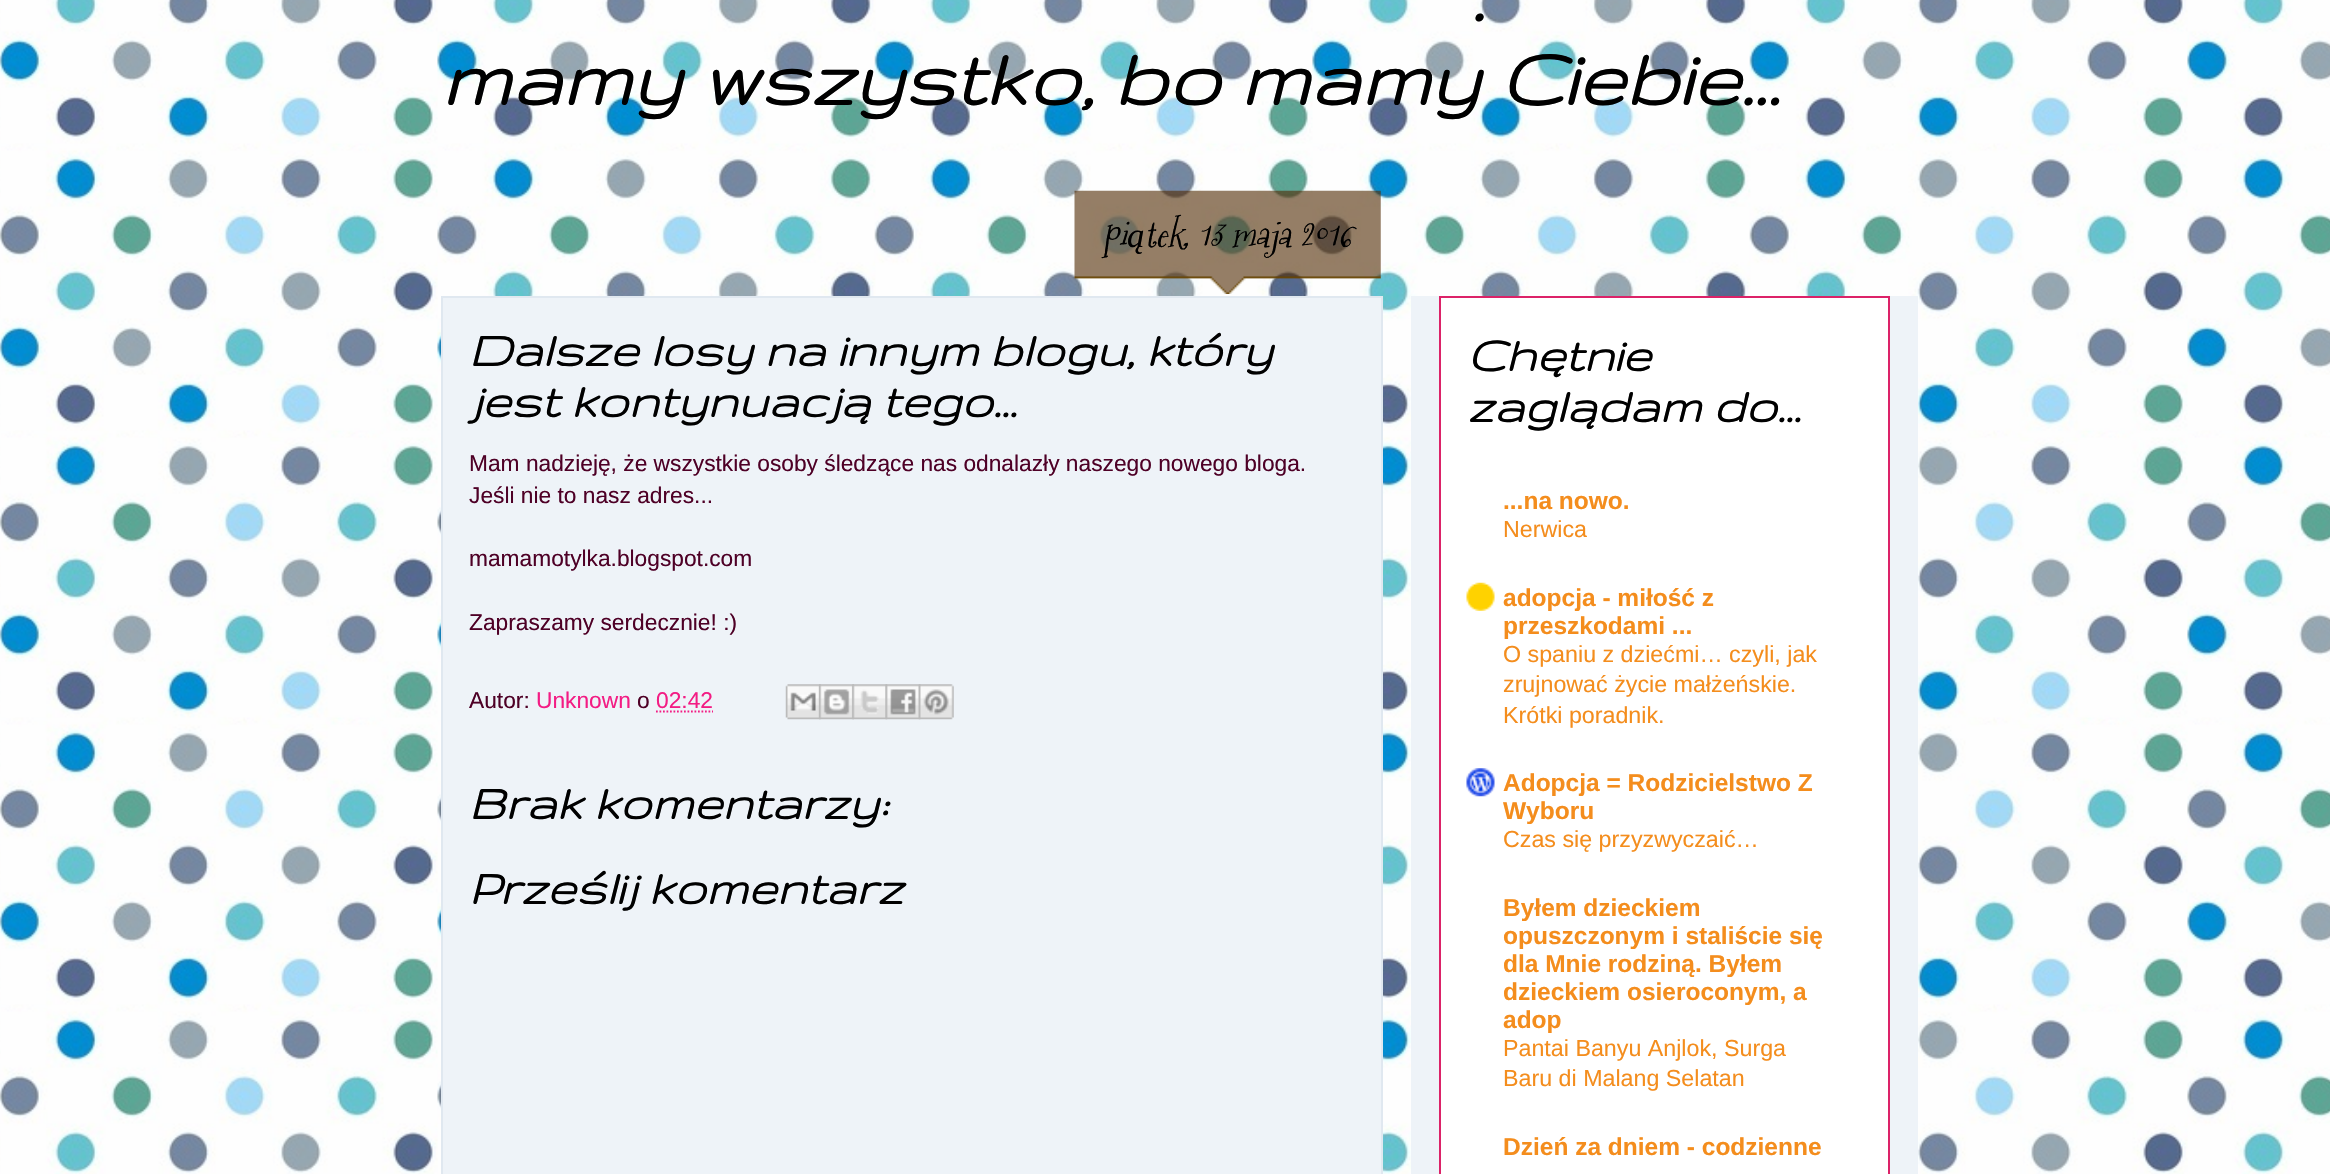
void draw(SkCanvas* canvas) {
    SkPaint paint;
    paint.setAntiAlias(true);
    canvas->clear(0xFFFFFFFF);
    canvas->drawImageRect(SkImages::DeferredFromEncodedData(SkData::MakeFromFileName("img1.png")), SkRect::MakeXYWH(0, 0, 2330, 1174), SkSamplingOptions());
    SkFont font1(fontMgr->matchFamilyStyle("Gruppo", SkFontStyle::BoldItalic()), 87.5f);
    font1.setSubpixel(true);
    paint.setColor(0xFF000000);
    canvas->drawString(".", 1471, 21, font1, paint);
    canvas->drawString("mamy wszystko, bo mamy Ciebie...", 441, 105, font1, paint);
    paint.setColor(0xFFEEF3F8);
    canvas->drawRect(SkRect::MakeXYWH(442, 297, 940, 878), paint);
    paint.setStyle(SkPaint::kStroke_Style);
    paint.setStrokeWidth(2);
    paint.setColor(0xFFE0E8F0);
    canvas->drawRect(SkRect::MakeXYWH(442, 297, 940, 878), paint);
    canvas->drawImageRect(SkImages::DeferredFromEncodedData(SkData::MakeFromFileName("img2.png")), SkRect::MakeXYWH(1074, 190, 307, 104), SkSamplingOptions());
    SkFont font2(fontMgr->matchFamilyStyle("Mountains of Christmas", SkFontStyle::Italic()), 35);
    font2.setSubpixel(true);
    paint.setStyle(SkPaint::kFill_Style);
    paint.setColor(0xFF000000);
    canvas->drawString("pi", 1102, 247, font2, paint);
    SkFont font3(fontMgr->matchFamilyStyle("Liberation Serif", SkFontStyle::Italic()), 35);
    font3.setSubpixel(true);
    canvas->drawString("ą", 1127, 247, font3, paint);
    canvas->drawString("tek, 13 maja 2016", 1144, 247, font2, paint);
    SkFont font4(fontMgr->matchFamilyStyle("Gruppo", SkFontStyle::BoldItalic()), 52.5f);
    font4.setSubpixel(true);
    canvas->drawString("Dalsze losy na innym blogu, który", 469, 366, font4, paint);
    canvas->drawString("jest kontynuacją tego...", 469, 417, font4, paint);
    SkFont font5(fontMgr->matchFamilyStyle("Liberation Sans", SkFontStyle::Normal()), 22.75f);
    font5.setSubpixel(true);
    paint.setColor(0xFF4E0026);
    canvas->drawString("Mam nadzieję, że wszystkie osoby śledzące nas odnalazły naszego nowego bloga.", 469, 471, font5, paint);
    canvas->drawString("Jeśli nie to nasz adres...", 469, 503, font5, paint);
    canvas->drawString("mamamotylka.blogspot.com", 469, 566, font5, paint);
    canvas->drawString("Zapraszamy serdecznie! :)", 469, 630, font5, paint);
    canvas->drawString("Autor:", 469, 708, font5, paint);
    paint.setColor(0xFFF31C84);
    canvas->drawString("Unknown", 536, 708, font5, paint);
    paint.setColor(0xFF4E0026);
    canvas->drawString("o", 637, 708, font5, paint);
    paint.setColor(0xFFF31C84);
    canvas->drawString("02:42", 656, 708, font5, paint);
    paint.setStyle(SkPaint::kStroke_Style);
    paint.setStrokeWidth(1.8f);
    paint.setPathEffect(SkDashPathEffect::Make({{1.75f, 1.75f}}, 0));
    canvas->drawPath(SkPathBuilder().moveTo(656, 711.5f).lineTo(713, 711.5f).detach(), paint);
    paint.setPathEffect(nullptr);
    canvas->drawImageRect(SkImages::DeferredFromEncodedData(SkData::MakeFromFileName("img3.png")), SkRect::MakeXYWH(785, 684, 36, 36), SkSamplingOptions());
    canvas->drawImageRect(SkImages::DeferredFromEncodedData(SkData::MakeFromFileName("img4.png")), SkRect::MakeXYWH(819, 684, 35, 36), SkSamplingOptions());
    canvas->drawImageRect(SkImages::DeferredFromEncodedData(SkData::MakeFromFileName("img5.png")), SkRect::MakeXYWH(852, 684, 36, 36), SkSamplingOptions());
    canvas->drawImageRect(SkImages::DeferredFromEncodedData(SkData::MakeFromFileName("img6.png")), SkRect::MakeXYWH(885, 684, 36, 36), SkSamplingOptions());
    canvas->drawImageRect(SkImages::DeferredFromEncodedData(SkData::MakeFromFileName("img7.png")), SkRect::MakeXYWH(918, 684, 36, 36), SkSamplingOptions());
    paint.setStyle(SkPaint::kFill_Style);
    paint.setColor(0xFF000000);
    canvas->drawString("Brak komentarzy:", 469, 819, font4, paint);
    canvas->drawString("Prześlij komentarz", 469, 904, font4, paint);
    paint.setColor(0xFFEEF3F8);
    canvas->drawRect(SkRect::MakeXYWH(1411, 296, 507, 878), paint);
    paint.setColor(0xFFFFFFFF);
    canvas->drawRect(SkRect::MakeXYWH(1440, 297, 449, 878), paint);
    paint.setStyle(SkPaint::kStroke_Style);
    paint.setStrokeWidth(2);
    paint.setColor(0xFFDC2268);
    canvas->drawRect(SkRect::MakeXYWH(1440, 297, 449, 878), paint);
    paint.setStyle(SkPaint::kFill_Style);
    paint.setColor(0xFF000000);
    canvas->drawString("Chętnie", 1467, 371, font4, paint);
    canvas->drawString("zaglądam do...", 1467, 422, font4, paint);
    SkFont font6(fontMgr->matchFamilyStyle("Liberation Sans", SkFontStyle::Bold()), 24.5f);
    font6.setSubpixel(true);
    paint.setColor(0xFFF48D1D);
    canvas->drawString("...na nowo.", 1503, 509, font6, paint);
    SkFont font7(fontMgr->matchFamilyStyle("Liberation Sans", SkFontStyle::Normal()), 23.25f);
    font7.setSubpixel(true);
    canvas->drawString("Nerwica", 1503, 537, font7, paint);
    canvas->drawImageRect(SkImages::DeferredFromEncodedData(SkData::MakeFromFileName("img8.png")), SkRect::MakeXYWH(1466, 582, 29, 29), SkSamplingOptions());
    canvas->drawString("adopcja - miłość z", 1503, 606, font6, paint);
    canvas->drawString("przeszkodami ...", 1503, 634, font6, paint);
    canvas->drawString("O spaniu z dziećmi… czyli, jak", 1503, 662, font7, paint);
    canvas->drawString("zrujnować życie małżeńskie.", 1503, 692, font7, paint);
    canvas->drawString("Krótki poradnik.", 1503, 723, font7, paint);
    canvas->drawImageRect(SkImages::DeferredFromEncodedData(SkData::MakeFromFileName("img9.png")), SkRect::MakeXYWH(1466, 768, 29, 29), SkSamplingOptions());
    canvas->drawString("Adopcja = Rodzicielstwo Z", 1503, 791, font6, paint);
    canvas->drawString("Wyboru", 1503, 819, font6, paint);
    canvas->drawString("Czas się przyzwyczaić…", 1503, 847, font7, paint);
    canvas->drawString("Byłem dzieckiem", 1503, 916, font6, paint);
    canvas->drawString("opuszczonym i staliście się", 1503, 944, font6, paint);
    canvas->drawString("dla Mnie rodziną. Byłem", 1503, 972, font6, paint);
    canvas->drawString("dzieckiem osieroconym, a", 1503, 1000, font6, paint);
    canvas->drawString("adop", 1503, 1028, font6, paint);
    canvas->drawString("Pantai Banyu Anjlok, Surga", 1503, 1056, font7, paint);
    canvas->drawString("Baru di Malang Selatan", 1503, 1086, font7, paint);
    canvas->drawString("Dzień za dniem - codzienne", 1503, 1155, font6, paint);
}
